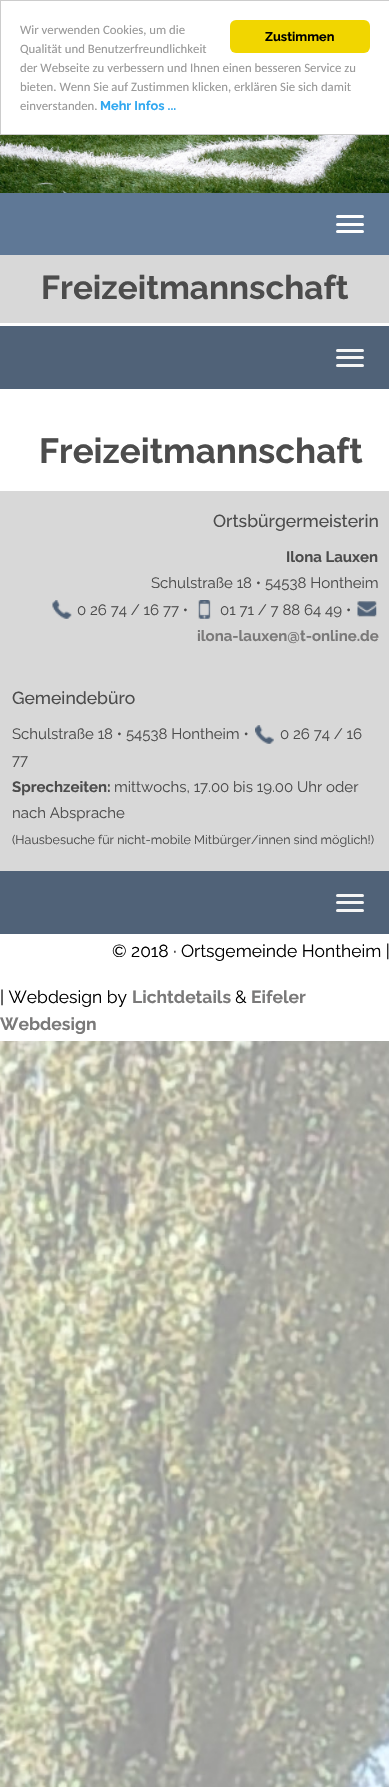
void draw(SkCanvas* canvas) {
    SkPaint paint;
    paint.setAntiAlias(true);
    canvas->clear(0xFFFFFFFF);
    canvas->drawImageRect(SkImages::DeferredFromEncodedData(SkData::MakeFromFileName("img1.png")), SkRect::MakeXYWH(0, 1041, 389, 746), SkSamplingOptions());
    paint.setStyle(SkPaint::kStroke_Style);
    paint.setStrokeWidth(1);
    paint.setColor(0xFFCCCCCC);
    canvas->drawRect(SkRect::MakeXYWH(0.5f, 0.5f, 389, 134), paint);
    SkFont font1(fontMgr->matchFamilyStyle("Carlito", SkFontStyle::Normal()), 12.75f);
    font1.setSubpixel(true);
    paint.setStyle(SkPaint::kFill_Style);
    paint.setColor(0xFF999999);
    canvas->drawString("Wir verwenden Cookies, um die", 20, 34, font1, paint);
    canvas->drawString("Qualität und Benutzerfreundlichkeit", 20, 53, font1, paint);
    canvas->drawString("der Webseite zu verbessern und Ihnen einen besseren Service zu", 20, 72, font1, paint);
    canvas->drawString("bieten. Wenn Sie auf Zustimmen klicken, erklären Sie sich damit", 20, 91, font1, paint);
    canvas->drawString("einverstanden.", 20, 110, font1, paint);
    SkFont font2(fontMgr->matchFamilyStyle("Raleway", SkFontStyle::Bold()), 12.75f);
    font2.setSubpixel(true);
    paint.setColor(0xFF31A8F0);
    canvas->drawString("Mehr Infos ...", 100, 110, font2, paint);
    paint.setColor(0xFFF1D600);
    canvas->drawRoundRect(SkRect::MakeXYWH(230, 20, 140, 33), 6, 6, paint);
    paint.setColor(0xFF000000);
    canvas->drawString("Zustimmen", 265, 41, font2, paint);
    canvas->drawImageRect(SkImages::DeferredFromEncodedData(SkData::MakeFromFileName("img2.png")), SkRect::MakeXYWH(0, 135, 389, 58), SkSamplingOptions());
    paint.setColor(0xFF5F7896);
    canvas->drawRect(SkRect::MakeXYWH(0, 193, 389, 62), paint);
    paint.setColor(0xFFFFFFFF);
    canvas->drawRoundRect(SkRect::MakeXYWH(336, 215, 28, 3), 1.5f, 1.5f, paint);
    canvas->drawRoundRect(SkRect::MakeXYWH(336, 223, 28, 3), 1.5f, 1.5f, paint);
    canvas->drawRoundRect(SkRect::MakeXYWH(336, 230, 28, 3), 1.5f, 1.5f, paint);
    paint.setColor(0xFFD8D8D8);
    canvas->drawRect(SkRect::MakeXYWH(0, 255, 389, 68), paint);
    SkFont font3(fontMgr->matchFamilyStyle("Raleway", SkFontStyle::Bold()), 33.25f);
    font3.setSubpixel(true);
    paint.setColor(0xFF4C4C4C);
    canvas->drawString("Freizeitmannschaft", 41, 299, font3, paint);
    paint.setColor(0xFF506278);
    canvas->drawRect(SkRect::MakeXYWH(0, 326, 389, 63), paint);
    paint.setColor(0xFFF5F5F5);
    canvas->drawRoundRect(SkRect::MakeXYWH(336, 349, 28, 3), 1.5f, 1.5f, paint);
    canvas->drawRoundRect(SkRect::MakeXYWH(336, 356, 28, 3), 1.5f, 1.5f, paint);
    canvas->drawRoundRect(SkRect::MakeXYWH(336, 364, 28, 3), 1.5f, 1.5f, paint);
    SkFont font4(fontMgr->matchFamilyStyle("Raleway", SkFontStyle::Bold()), 35);
    font4.setSubpixel(true);
    paint.setColor(0xFF4C4C4C);
    canvas->drawString("Freizeitmannschaft", 39, 463, font4, paint);
    paint.setColor(0xFFD8D8D8);
    canvas->drawRect(SkRect::MakeXYWH(0, 491, 389, 380), paint);
    SkFont font5(fontMgr->matchFamilyStyle("Raleway", SkFontStyle(500, SkFontStyle::kNormal_Width, SkFontStyle::kUpright_Slant)), 17.5f);
    font5.setSubpixel(true);
    paint.setColor(0xFF4C4C4C);
    canvas->drawString("Ortsbürgermeisterin", 213, 527, font5, paint);
    SkFont font6(fontMgr->matchFamilyStyle("Raleway", SkFontStyle::Bold()), 15);
    font6.setSubpixel(true);
    canvas->drawString("Ilona Lauxen", 286, 562, font6, paint);
    SkFont font7(fontMgr->matchFamilyStyle("Raleway", SkFontStyle::Normal()), 15);
    font7.setSubpixel(true);
    canvas->drawString("Schulstraße 18 • 54538 Hontheim", 151, 588, font7, paint);
    canvas->drawImageRect(SkImages::DeferredFromEncodedData(SkData::MakeFromFileName("img3.png")), SkRect::MakeXYWH(52, 600, 20, 19), SkSamplingOptions());
    canvas->drawString("0 26 74 / 16 77 •", 77, 615, font7, paint);
    canvas->drawImageRect(SkImages::DeferredFromEncodedData(SkData::MakeFromFileName("img4.png")), SkRect::MakeXYWH(198, 600, 13, 19), SkSamplingOptions());
    canvas->drawString("01 71 / 7 88 64 49 •", 220, 615, font7, paint);
    canvas->drawImageRect(SkImages::DeferredFromEncodedData(SkData::MakeFromFileName("img5.png")), SkRect::MakeXYWH(357, 601, 20, 16), SkSamplingOptions());
    paint.setColor(0xFF7A7979);
    canvas->drawString("ilona-lauxen@t-online.de", 197, 641, font6, paint);
    paint.setColor(0xFF4C4C4C);
    canvas->drawString("Gemeindebüro", 12, 704, font5, paint);
    canvas->drawString("Schulstraße 18 • 54538 Hontheim •", 12, 739, font7, paint);
    canvas->drawImageRect(SkImages::DeferredFromEncodedData(SkData::MakeFromFileName("img6.png")), SkRect::MakeXYWH(255, 725, 19, 19), SkSamplingOptions());
    canvas->drawString("0 26 74 / 16", 280, 739, font7, paint);
    canvas->drawString("77", 12, 765, font7, paint);
    canvas->drawString("Sprechzeiten:", 12, 792, font6, paint);
    canvas->drawString("mittwochs, 17.00 bis 19.00 Uhr oder", 114, 792, font7, paint);
    canvas->drawString("nach Absprache", 12, 818, font7, paint);
    SkFont font8(fontMgr->matchFamilyStyle("Raleway", SkFontStyle::Normal()), 12.5f);
    font8.setSubpixel(true);
    canvas->drawString("(Hausbesuche für nicht-mobile Mitbürger/innen sind möglich!)", 12, 844, font8, paint);
    paint.setColor(0xFF506278);
    canvas->drawRect(SkRect::MakeXYWH(0, 871, 389, 63), paint);
    paint.setColor(0xFFF5F5F5);
    canvas->drawRoundRect(SkRect::MakeXYWH(336, 894, 28, 3), 1.5f, 1.5f, paint);
    canvas->drawRoundRect(SkRect::MakeXYWH(336, 901, 28, 3), 1.5f, 1.5f, paint);
    canvas->drawRoundRect(SkRect::MakeXYWH(336, 909, 28, 3), 1.5f, 1.5f, paint);
    SkFont font9(fontMgr->matchFamilyStyle("Raleway", SkFontStyle::Normal()), 17.5f);
    font9.setSubpixel(true);
    paint.setColor(0xFF000000);
    canvas->drawString("© 2018 · Ortsgemeinde Hontheim |", 112, 957, font9, paint);
    canvas->drawString("| Webdesign by", 0, 1003, font9, paint);
    SkFont font10(fontMgr->matchFamilyStyle("Raleway", SkFontStyle::Bold()), 17.5f);
    font10.setSubpixel(true);
    paint.setColor(0xFF7A7979);
    canvas->drawString("Lichtdetails", 132, 1003, font10, paint);
    paint.setColor(0xFF000000);
    canvas->drawString("&", 235, 1003, font9, paint);
    paint.setColor(0xFF7A7979);
    canvas->drawString("Eifeler", 251, 1003, font10, paint);
    canvas->drawString("Webdesign", 0, 1030, font10, paint);
}
